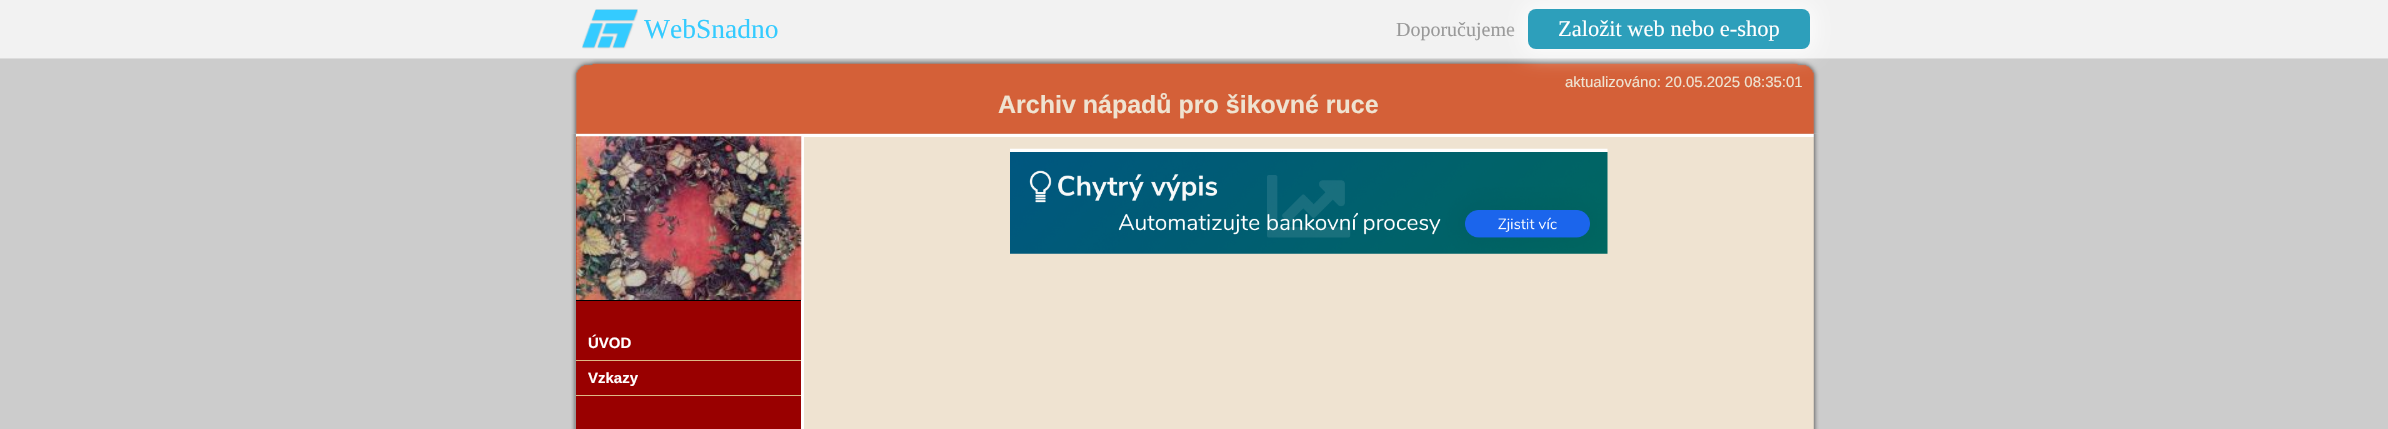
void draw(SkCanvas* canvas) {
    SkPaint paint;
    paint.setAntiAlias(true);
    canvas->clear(0xFFCCCCCC);
    paint.setColor(0xFFF2F2F2);
    canvas->drawRect(SkRect::MakeXYWH(0, 0, 2388, 58), paint);
    paint.setColor(0xFFDDDDDD);
    canvas->drawRect(SkRect::MakeXYWH(0, 58, 2388, 1), paint);
    canvas->drawImageRect(SkImages::DeferredFromEncodedData(SkData::MakeFromFileName("img1.png")), SkRect::MakeXYWH(582, 9, 56, 40), SkSamplingOptions());
    SkFont font1(fontMgr->matchFamilyStyle("Liberation Serif", SkFontStyle::Normal()), 27.5f);
    font1.setSubpixel(true);
    paint.setColor(0xFF34CBFF);
    canvas->drawString("WebSnadno", 644, 38, font1, paint);
    SkFont font2(fontMgr->matchFamilyStyle("Liberation Serif", SkFontStyle::Normal()), 20);
    font2.setSubpixel(true);
    paint.setColor(0xFF999999);
    canvas->drawString("Doporučujeme", 1396, 36, font2, paint);
    canvas->drawImageRect(SkImages::DeferredFromEncodedData(SkData::MakeFromFileName("img2.png")), SkRect::MakeXYWH(571, 59, 1248, 75), SkSamplingOptions());
    paint.setColor(0xBFFFFFFF);
    paint.setMaskFilter(SkMaskFilter::MakeBlur(kNormal_SkBlurStyle, 10));
    canvas->drawRoundRect(SkRect::MakeXYWH(1523, 4, 292, 50), 13, 13, paint);
    paint.setMaskFilter(nullptr);
    paint.setColor(0xFF2D9FBB);
    canvas->drawRoundRect(SkRect::MakeXYWH(1528, 9, 282, 40), 8, 8, paint);
    SkFont font3(fontMgr->matchFamilyStyle("Liberation Serif", SkFontStyle::Normal()), 22.5f);
    font3.setSubpixel(true);
    paint.setColor(0xFFFFFFFF);
    canvas->drawString("Založit web nebo e-shop", 1558, 36, font3, paint);
    SkFont font4(fontMgr->matchFamilyStyle("Liberation Sans", SkFontStyle::Normal()), 15);
    font4.setSubpixel(true);
    paint.setColor(0xFFEFE3D1);
    canvas->drawString("aktualizováno: 20.05.2025 08:35:01", 1565, 87, font4, paint);
    SkFont font5(fontMgr->matchFamilyStyle("Liberation Sans", SkFontStyle::Bold()), 25);
    font5.setSubpixel(true);
    canvas->drawString("Archiv nápadů pro šikovné ruce", 998, 113, font5, paint);
    canvas->drawImageRect(SkImages::DeferredFromEncodedData(SkData::MakeFromFileName("img3.png")), SkRect::MakeXYWH(571, 133, 6, 296), SkSamplingOptions());
    paint.setColor(0xFF990000);
    canvas->drawRect(SkRect::MakeXYWH(576, 137, 225, 292), paint);
    paint.setColor(0xFFFFFFFF);
    canvas->drawRect(SkRect::MakeXYWH(576, 134, 1238, 3), paint);
    canvas->drawRect(SkRect::MakeXYWH(801, 134, 3, 295), paint);
    canvas->drawImageRect(SkImages::DeferredFromEncodedData(SkData::MakeFromFileName("img4.png")), SkRect::MakeXYWH(576, 136, 226, 164), SkSamplingOptions());
    paint.setColor(0xFF000000);
    canvas->drawRect(SkRect::MakeXYWH(576, 300, 225, 1), paint);
    paint.setColor(0xFFDEB985);
    canvas->drawRect(SkRect::MakeXYWH(576, 360, 225, 1), paint);
    SkFont font6(fontMgr->matchFamilyStyle("Liberation Sans", SkFontStyle::Bold()), 15);
    font6.setSubpixel(true);
    paint.setColor(0xFFFFFFFF);
    canvas->drawString("ÚVOD", 588, 348, font6, paint);
    paint.setColor(0xFFDEB985);
    canvas->drawRect(SkRect::MakeXYWH(576, 395, 225, 1), paint);
    paint.setColor(0xFFFFFFFF);
    canvas->drawString("Vzkazy", 588, 383, font6, paint);
    paint.setColor(0xFFEFE3D1);
    canvas->drawRect(SkRect::MakeXYWH(804, 137, 1010, 292), paint);
    canvas->drawImageRect(SkImages::DeferredFromEncodedData(SkData::MakeFromFileName("img5.png")), SkRect::MakeXYWH(1010, 148, 598, 106), SkSamplingOptions());
    canvas->drawImageRect(SkImages::DeferredFromEncodedData(SkData::MakeFromFileName("img6.png")), SkRect::MakeXYWH(1813, 134, 6, 295), SkSamplingOptions());
}
